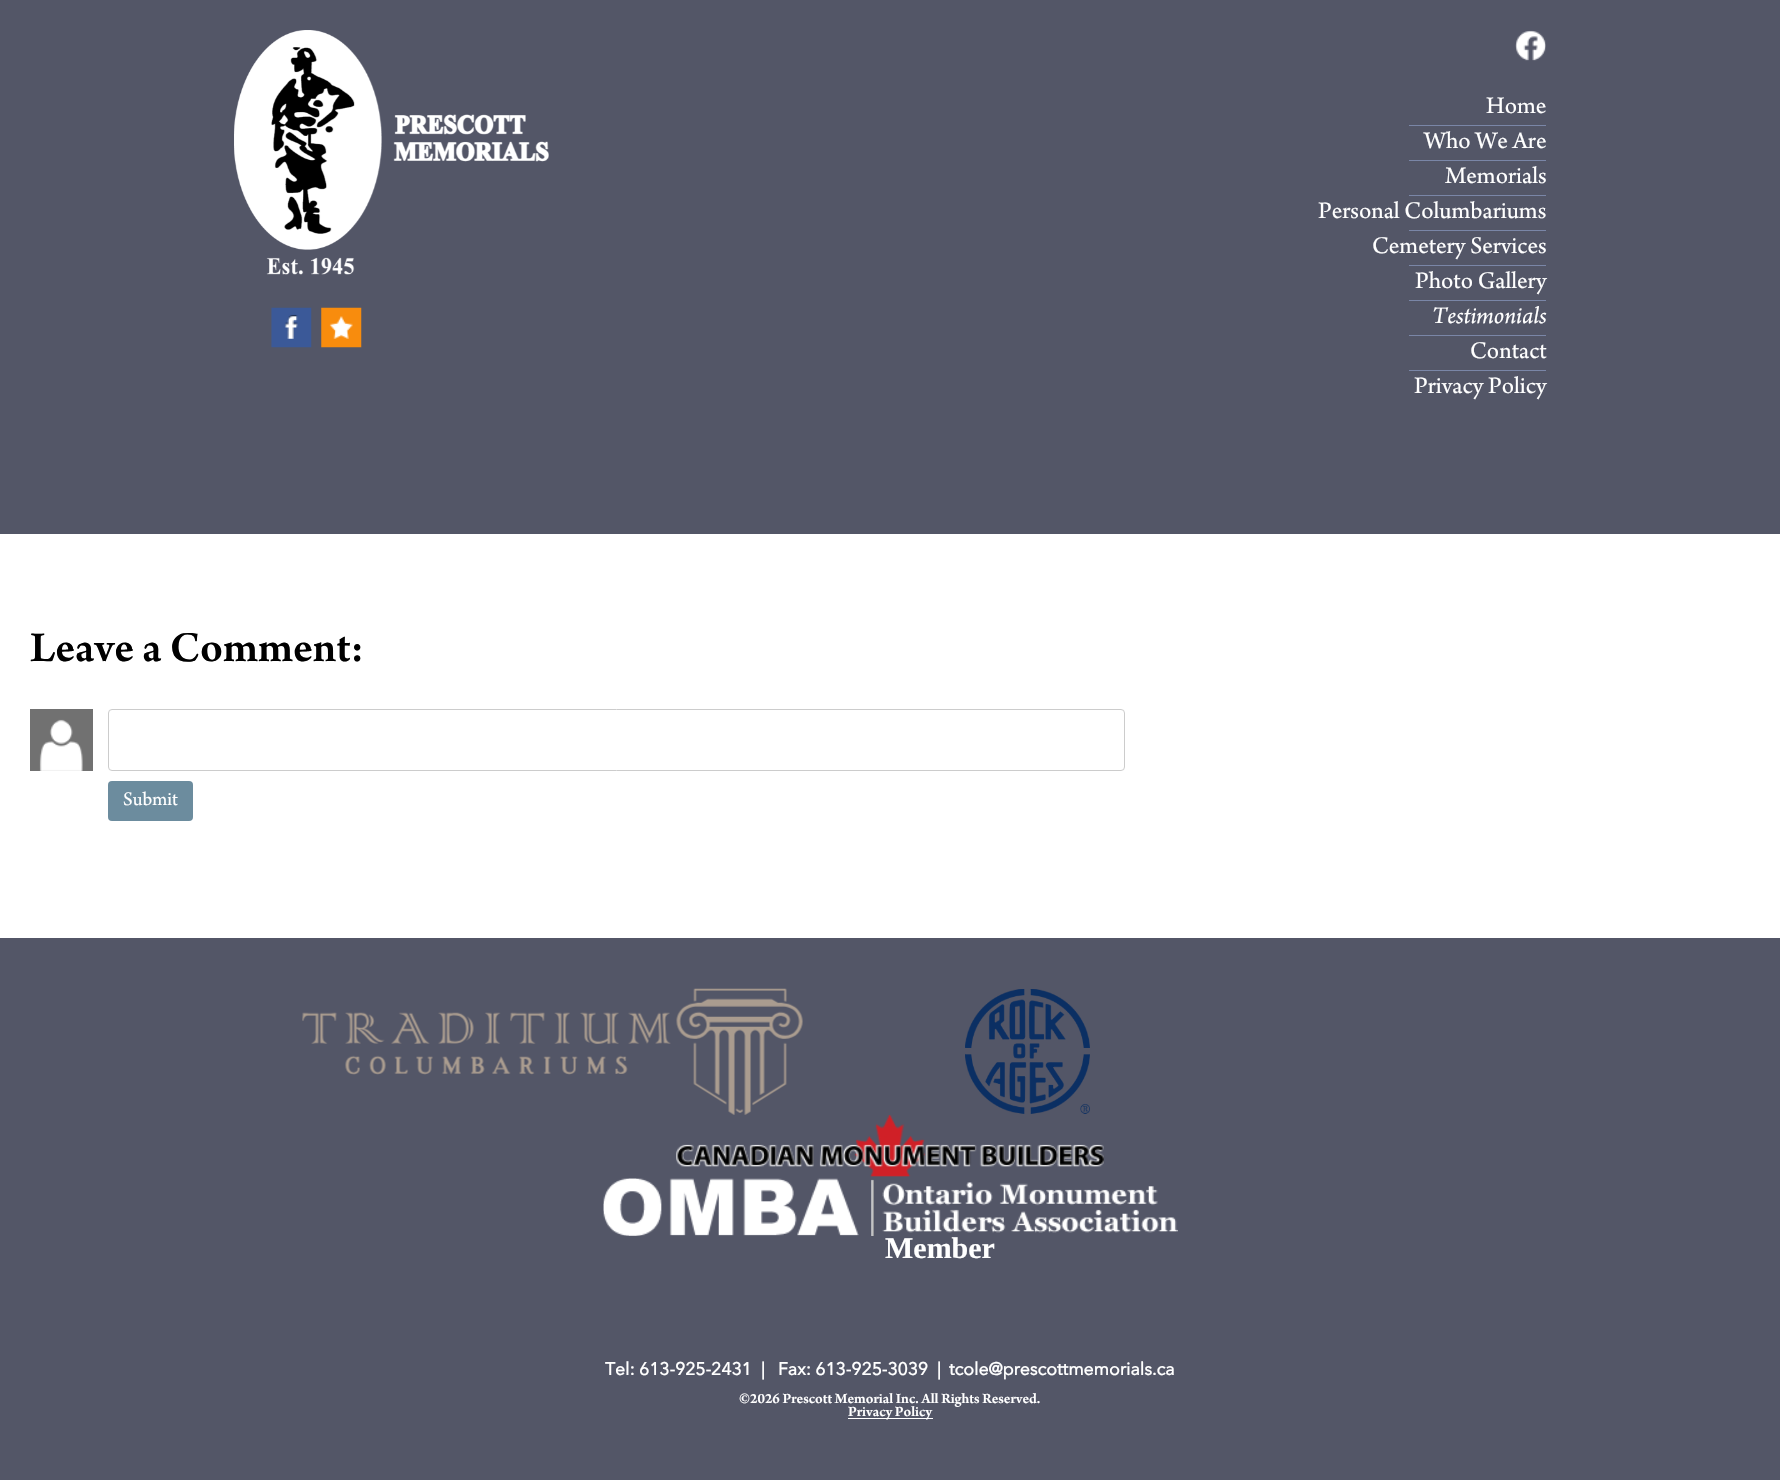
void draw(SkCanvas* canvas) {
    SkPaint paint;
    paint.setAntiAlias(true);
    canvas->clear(0xFFFFFFFF);
    paint.setColor(0xFF535667);
    canvas->drawRect(SkRect::MakeXYWH(0, 0, 1780, 534), paint);
    canvas->drawImageRect(SkImages::DeferredFromEncodedData(SkData::MakeFromFileName("img1.png")), SkRect::MakeXYWH(234, 30, 315, 245), SkSamplingOptions());
    canvas->drawImageRect(SkImages::DeferredFromEncodedData(SkData::MakeFromFileName("img2.png")), SkRect::MakeXYWH(271, 307, 41, 41), SkSamplingOptions());
    canvas->drawImageRect(SkImages::DeferredFromEncodedData(SkData::MakeFromFileName("img3.png")), SkRect::MakeXYWH(321, 307, 41, 41), SkSamplingOptions());
    canvas->drawImageRect(SkImages::DeferredFromEncodedData(SkData::MakeFromFileName("img4.png")), SkRect::MakeXYWH(1515, 30, 31, 31), SkSamplingOptions());
    SkFont font1(fontMgr->matchFamilyStyle("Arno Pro", SkFontStyle::Normal()), 25);
    font1.setSubpixel(true);
    paint.setColor(0xFFFFFFFF);
    canvas->drawString("Home", 1486, 113, font1, paint);
    paint.setColor(0xFF7A86A7);
    canvas->drawRect(SkRect::MakeXYWH(1409, 125, 137, 1), paint);
    paint.setColor(0xFFFFFFFF);
    canvas->drawString("Who We Are", 1424, 148, font1, paint);
    paint.setColor(0xFF7A86A7);
    canvas->drawRect(SkRect::MakeXYWH(1409, 160, 137, 1), paint);
    paint.setColor(0xFFFFFFFF);
    canvas->drawString("Memorials", 1445, 183, font1, paint);
    paint.setColor(0xFF7A86A7);
    canvas->drawRect(SkRect::MakeXYWH(1409, 195, 137, 1), paint);
    paint.setColor(0xFFFFFFFF);
    canvas->drawString("Personal Columbariums", 1318, 218, font1, paint);
    paint.setColor(0xFF7A86A7);
    canvas->drawRect(SkRect::MakeXYWH(1409, 230, 137, 1), paint);
    paint.setColor(0xFFFFFFFF);
    canvas->drawString("Cemetery Services", 1372, 253, font1, paint);
    paint.setColor(0xFF7A86A7);
    canvas->drawRect(SkRect::MakeXYWH(1409, 265, 137, 1), paint);
    paint.setColor(0xFFFFFFFF);
    canvas->drawString("Photo Gallery", 1415, 288, font1, paint);
    paint.setColor(0xFF7A86A7);
    canvas->drawRect(SkRect::MakeXYWH(1409, 300, 137, 1), paint);
    SkFont font2(fontMgr->matchFamilyStyle("Arno Pro", SkFontStyle::Italic()), 25);
    font2.setSubpixel(true);
    paint.setColor(0xFFFFFFFF);
    canvas->drawString("Testimonials", 1432, 323, font2, paint);
    paint.setColor(0xFF7A86A7);
    canvas->drawRect(SkRect::MakeXYWH(1409, 335, 137, 1), paint);
    paint.setColor(0xFFFFFFFF);
    canvas->drawString("Contact", 1470, 358, font1, paint);
    paint.setColor(0xFF7A86A7);
    canvas->drawRect(SkRect::MakeXYWH(1409, 370, 137, 1), paint);
    paint.setColor(0xFFFFFFFF);
    canvas->drawString("Privacy Policy", 1414, 393, font1, paint);
    SkFont font3(fontMgr->matchFamilyStyle("Arno Pro", SkFontStyle(600, SkFontStyle::kNormal_Width, SkFontStyle::kUpright_Slant)), 45);
    font3.setSubpixel(true);
    paint.setColor(0xFF000000);
    canvas->drawString("Leave a Comment:", 30, 661, font3, paint);
    canvas->drawImageRect(SkImages::DeferredFromEncodedData(SkData::MakeFromFileName("img5.png")), SkRect::MakeXYWH(30, 709, 63, 62), SkSamplingOptions());
    paint.setStyle(SkPaint::kStroke_Style);
    paint.setStrokeWidth(1);
    paint.setColor(0xFFCCCCCC);
    canvas->drawRoundRect(SkRect::MakeXYWH(108.5f, 709.5f, 1016, 61), 3.5f, 3.5f, paint);
    paint.setStyle(SkPaint::kFill_Style);
    paint.setColor(0xFF6C8C9E);
    canvas->drawRoundRect(SkRect::MakeXYWH(108, 781, 85, 40), 4, 4, paint);
    SkFont font4(fontMgr->matchFamilyStyle("Arno Pro", SkFontStyle::Normal()), 20);
    font4.setSubpixel(true);
    paint.setColor(0xFFFFFFFF);
    canvas->drawString("Submit", 123, 805, font4, paint);
    paint.setColor(0xFF535667);
    canvas->drawRect(SkRect::MakeXYWH(0, 938, 1780, 542), paint);
    canvas->drawImageRect(SkImages::DeferredFromEncodedData(SkData::MakeFromFileName("img6.png")), SkRect::MakeXYWH(302, 988, 501, 127), SkSamplingOptions());
    canvas->drawImageRect(SkImages::DeferredFromEncodedData(SkData::MakeFromFileName("img7.png")), SkRect::MakeXYWH(965, 989, 125, 125), SkSamplingOptions());
    canvas->drawImageRect(SkImages::DeferredFromEncodedData(SkData::MakeFromFileName("img8.png")), SkRect::MakeXYWH(676, 1115, 428, 62), SkSamplingOptions());
    canvas->drawImageRect(SkImages::DeferredFromEncodedData(SkData::MakeFromFileName("img9.png")), SkRect::MakeXYWH(603, 1178, 575, 58), SkSamplingOptions());
    SkFont font5(fontMgr->matchFamilyStyle("Liberation Serif", SkFontStyle::Bold()), 30);
    font5.setSubpixel(true);
    paint.setColor(0xFFFFFFFF);
    canvas->drawString("Member", 885, 1258, font5, paint);
    SkFont font6(fontMgr->matchFamilyStyle("Avenir Next", SkFontStyle::Bold()), 17.5f);
    font6.setSubpixel(true);
    canvas->drawString("Tel: 613-925-2431", 605, 1375, font6, paint);
    canvas->drawString("|   Fax: 613-925-3039", 761, 1375, font6, paint);
    canvas->drawString("|", 937, 1375, font6, paint);
    canvas->drawString("tcole@prescottmemorials.ca", 949, 1375, font6, paint);
    SkFont font7(fontMgr->matchFamilyStyle("Arno Pro", SkFontStyle(600, SkFontStyle::kNormal_Width, SkFontStyle::kUpright_Slant)), 15);
    font7.setSubpixel(true);
    canvas->drawString("©2026 Prescott Memorial Inc. All Rights Reserved.", 739, 1403, font7, paint);
    canvas->drawRect(SkRect::MakeXYWH(848, 1418, 85, 1), paint);
    canvas->drawString("Privacy Policy", 848, 1416, font7, paint);
}
